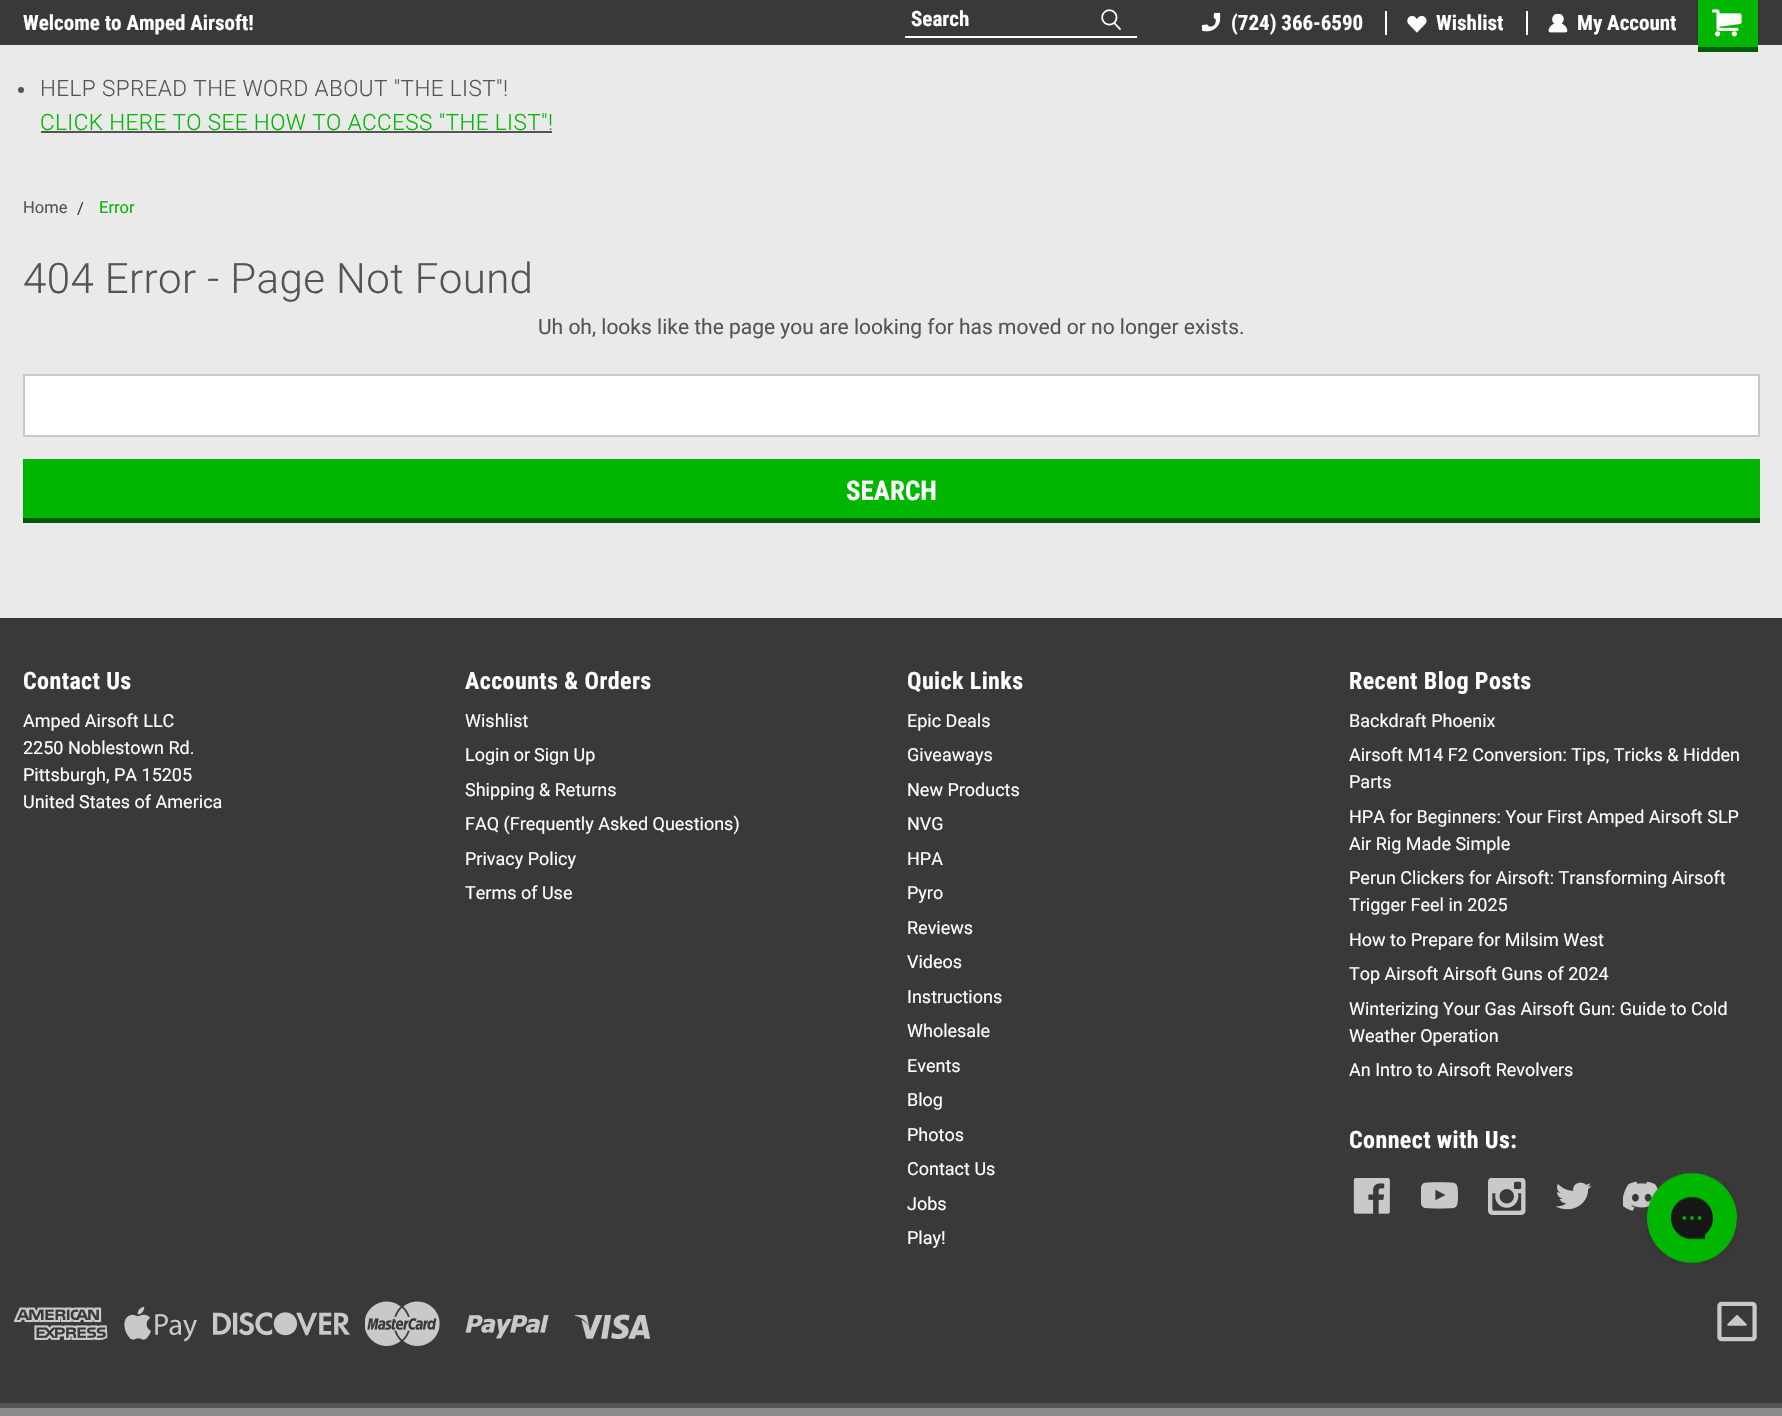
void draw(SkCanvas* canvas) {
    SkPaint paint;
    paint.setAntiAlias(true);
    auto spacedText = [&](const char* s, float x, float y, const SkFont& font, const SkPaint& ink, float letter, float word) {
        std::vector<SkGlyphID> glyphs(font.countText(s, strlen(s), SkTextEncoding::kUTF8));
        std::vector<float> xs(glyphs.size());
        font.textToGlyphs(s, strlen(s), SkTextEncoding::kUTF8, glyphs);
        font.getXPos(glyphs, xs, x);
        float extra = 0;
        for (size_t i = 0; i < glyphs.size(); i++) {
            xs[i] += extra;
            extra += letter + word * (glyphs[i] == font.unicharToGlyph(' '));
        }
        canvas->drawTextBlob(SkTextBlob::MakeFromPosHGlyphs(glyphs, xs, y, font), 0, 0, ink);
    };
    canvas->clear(0xFFEAEAEA);
    paint.setColor(0xFF393939);
    canvas->drawRect(SkRect::MakeXYWH(0, 0, 1782, 45), paint);
    SkFont font1(fontMgr->matchFamilyStyle("Roboto Condensed", SkFontStyle::Bold()), 21);
    font1.setSubpixel(true);
    paint.setColor(0xFFFFFFFF);
    canvas->drawString("Welcome to Amped Airsoft!", 23, 30, font1, paint);
    canvas->drawRect(SkRect::MakeXYWH(905, 36, 232, 2), paint);
    canvas->drawString("Search", 911, 26, font1, paint);
    canvas->drawImageRect(SkImages::DeferredFromEncodedData(SkData::MakeFromFileName("img1.png")), SkRect::MakeXYWH(1101, 9, 20, 21), SkSamplingOptions());
    canvas->drawRect(SkRect::MakeXYWH(1385, 11, 2, 24), paint);
    canvas->drawImageRect(SkImages::DeferredFromEncodedData(SkData::MakeFromFileName("img2.png")), SkRect::MakeXYWH(1201, 12, 20, 20), SkSamplingOptions());
    canvas->drawString("(724) 366-6590", 1231, 30, font1, paint);
    canvas->drawRect(SkRect::MakeXYWH(1526, 11, 2, 24), paint);
    canvas->drawImageRect(SkImages::DeferredFromEncodedData(SkData::MakeFromFileName("img3.png")), SkRect::MakeXYWH(1407, 15, 20, 18), SkSamplingOptions());
    canvas->drawString("Wishlist", 1436, 30, font1, paint);
    canvas->drawImageRect(SkImages::DeferredFromEncodedData(SkData::MakeFromFileName("img4.png")), SkRect::MakeXYWH(1548, 14, 20, 19), SkSamplingOptions());
    canvas->drawString("My Account", 1577, 30, font1, paint);
    paint.setColor(0xFF00B600);
    canvas->drawRect(SkRect::MakeXYWH(1698, 0, 60, 47), paint);
    paint.setColor(0xFF02580A);
    canvas->drawRect(SkRect::MakeXYWH(1698, 47, 60, 5), paint);
    canvas->drawImageRect(SkImages::DeferredFromEncodedData(SkData::MakeFromFileName("img5.png")), SkRect::MakeXYWH(1712, 9, 30, 28), SkSamplingOptions());
    paint.setColor(0xFF545454);
    canvas->drawCircle(21, 90, 3, paint);
    SkFont font2(fontMgr->matchFamilyStyle("Roboto", SkFontStyle(300, SkFontStyle::kNormal_Width, SkFontStyle::kUpright_Slant)), 22.5f);
    font2.setSubpixel(true);
    spacedText("HELP SPREAD THE WORD ABOUT \"THE LIST\"!", 40, 96, font2, paint, 0.4f, 0);
    paint.setColor(0xFF00B600);
    spacedText("CLICK HERE TO SEE HOW TO ACCESS \"THE LIST\"!", 40, 130, font2, paint, 0.4f, 0);
    paint.setColor(0xFF545454);
    canvas->drawRect(SkRect::MakeXYWH(41, 131, 511, 2), paint);
    SkFont font3(fontMgr->matchFamilyStyle("Roboto", SkFontStyle::Normal()), 16.5f);
    font3.setSubpixel(true);
    canvas->drawString("Home", 23, 213, font3, paint);
    paint.setColor(0xFF393939);
    canvas->drawString("/", 77, 214, font3, paint);
    paint.setColor(0xFF00B600);
    canvas->drawString("Error", 99, 213, font3, paint);
    SkFont font4(fontMgr->matchFamilyStyle("Roboto", SkFontStyle(300, SkFontStyle::kNormal_Width, SkFontStyle::kUpright_Slant)), 42);
    font4.setSubpixel(true);
    paint.setColor(0xFF545454);
    spacedText("404 Error - Page Not Found", 23, 293, font4, paint, 0.4f, 0);
    SkFont font5(fontMgr->matchFamilyStyle("Roboto", SkFontStyle::Normal()), 21);
    font5.setSubpixel(true);
    canvas->drawString("Uh oh, looks like the page you are looking for has moved or no longer exists.", 538, 334, font5, paint);
    paint.setColor(0xFFFFFFFF);
    canvas->drawRect(SkRect::MakeXYWH(24, 375, 1735, 61), paint);
    paint.setStyle(SkPaint::kStroke_Style);
    paint.setStrokeWidth(2);
    paint.setColor(0xFFCAC9C9);
    canvas->drawRect(SkRect::MakeXYWH(24, 375, 1735, 61), paint);
    paint.setStyle(SkPaint::kFill_Style);
    paint.setColor(0xFF00B600);
    canvas->drawRect(SkRect::MakeXYWH(23, 459, 1737, 59), paint);
    paint.setColor(0xFF02580A);
    canvas->drawRect(SkRect::MakeXYWH(23, 518, 1737, 5), paint);
    SkFont font6(fontMgr->matchFamilyStyle("Roboto Condensed", SkFontStyle::Bold()), 27);
    font6.setSubpixel(true);
    paint.setColor(0xFFFFFFFF);
    canvas->drawString("SEARCH", 846, 500, font6, paint);
    paint.setColor(0xFF393939);
    canvas->drawRect(SkRect::MakeXYWH(0, 618, 1782, 785), paint);
    SkFont font7(fontMgr->matchFamilyStyle("Roboto Condensed", SkFontStyle::Bold()), 24);
    font7.setSubpixel(true);
    paint.setColor(0xFFFFFFFF);
    spacedText("Contact Us", 23, 689, font7, paint, 0.4f, 0);
    SkFont font8(fontMgr->matchFamilyStyle("Roboto", SkFontStyle::Normal()), 18);
    font8.setSubpixel(true);
    canvas->drawString("Amped Airsoft LLC", 23, 727, font8, paint);
    canvas->drawString("2250 Noblestown Rd.", 23, 754, font8, paint);
    canvas->drawString("Pittsburgh, PA 15205", 23, 781, font8, paint);
    canvas->drawString("United States of America", 23, 808, font8, paint);
    spacedText("Accounts & Orders", 465, 689, font7, paint, 0.4f, 0);
    canvas->drawString("Wishlist", 465, 727, font8, paint);
    canvas->drawString("Login or", 465, 761, font8, paint);
    canvas->drawString("Sign Up", 534, 761, font8, paint);
    canvas->drawString("Shipping & Returns", 465, 796, font8, paint);
    canvas->drawString("FAQ (Frequently Asked Questions)", 465, 830, font8, paint);
    canvas->drawString("Privacy Policy", 465, 865, font8, paint);
    canvas->drawString("Terms of Use", 465, 899, font8, paint);
    spacedText("Quick Links", 907, 689, font7, paint, 0.4f, 0);
    canvas->drawString("Epic Deals", 907, 727, font8, paint);
    canvas->drawString("Giveaways", 907, 761, font8, paint);
    canvas->drawString("New Products", 907, 796, font8, paint);
    canvas->drawString("NVG", 907, 830, font8, paint);
    canvas->drawString("HPA", 907, 865, font8, paint);
    canvas->drawString("Pyro", 907, 899, font8, paint);
    canvas->drawString("Reviews", 907, 934, font8, paint);
    canvas->drawString("Videos", 907, 968, font8, paint);
    canvas->drawString("Instructions", 907, 1003, font8, paint);
    canvas->drawString("Wholesale", 907, 1037, font8, paint);
    canvas->drawString("Events", 907, 1072, font8, paint);
    canvas->drawString("Blog", 907, 1106, font8, paint);
    canvas->drawString("Photos", 907, 1141, font8, paint);
    canvas->drawString("Contact Us", 907, 1175, font8, paint);
    canvas->drawString("Jobs", 907, 1210, font8, paint);
    canvas->drawString("Play!", 907, 1244, font8, paint);
    spacedText("Recent Blog Posts", 1349, 689, font7, paint, 0.4f, 0);
    canvas->drawString("Backdraft Phoenix", 1349, 727, font8, paint);
    canvas->drawString("Airsoft M14 F2 Conversion: Tips, Tricks & Hidden", 1349, 761, font8, paint);
    canvas->drawString("Parts", 1349, 788, font8, paint);
    canvas->drawString("HPA for Beginners: Your First Amped Airsoft SLP", 1349, 823, font8, paint);
    canvas->drawString("Air Rig Made Simple", 1349, 850, font8, paint);
    canvas->drawString("Perun Clickers for Airsoft: Transforming Airsoft", 1349, 884, font8, paint);
    canvas->drawString("Trigger Feel in 2025", 1349, 911, font8, paint);
    canvas->drawString("How to Prepare for Milsim West", 1349, 946, font8, paint);
    canvas->drawString("Top Airsoft Airsoft Guns of 2024", 1349, 980, font8, paint);
    canvas->drawString("Winterizing Your Gas Airsoft Gun: Guide to Cold", 1349, 1015, font8, paint);
    canvas->drawString("Weather Operation", 1349, 1042, font8, paint);
    canvas->drawString("An Intro to Airsoft Revolvers", 1349, 1076, font8, paint);
    spacedText("Connect with Us:", 1349, 1148, font7, paint, 0.4f, 0);
    canvas->drawImageRect(SkImages::DeferredFromEncodedData(SkData::MakeFromFileName("img6.png")), SkRect::MakeXYWH(1353, 1178, 37, 36), SkSamplingOptions());
    canvas->drawImageRect(SkImages::DeferredFromEncodedData(SkData::MakeFromFileName("img7.png")), SkRect::MakeXYWH(1421, 1182, 37, 27), SkSamplingOptions());
    canvas->drawImageRect(SkImages::DeferredFromEncodedData(SkData::MakeFromFileName("img8.png")), SkRect::MakeXYWH(1488, 1178, 38, 37), SkSamplingOptions());
    canvas->drawImageRect(SkImages::DeferredFromEncodedData(SkData::MakeFromFileName("img9.png")), SkRect::MakeXYWH(1556, 1182, 36, 28), SkSamplingOptions());
    canvas->drawImageRect(SkImages::DeferredFromEncodedData(SkData::MakeFromFileName("img10.png")), SkRect::MakeXYWH(1623, 1181, 35, 30), SkSamplingOptions());
    canvas->drawImageRect(SkImages::DeferredFromEncodedData(SkData::MakeFromFileName("img11.png")), SkRect::MakeXYWH(14, 1307, 94, 33), SkSamplingOptions());
    canvas->drawImageRect(SkImages::DeferredFromEncodedData(SkData::MakeFromFileName("img12.png")), SkRect::MakeXYWH(124, 1306, 73, 36), SkSamplingOptions());
    canvas->drawImageRect(SkImages::DeferredFromEncodedData(SkData::MakeFromFileName("img13.png")), SkRect::MakeXYWH(213, 1312, 137, 24), SkSamplingOptions());
    canvas->drawImageRect(SkImages::DeferredFromEncodedData(SkData::MakeFromFileName("img14.png")), SkRect::MakeXYWH(365, 1301, 75, 45), SkSamplingOptions());
    canvas->drawImageRect(SkImages::DeferredFromEncodedData(SkData::MakeFromFileName("img15.png")), SkRect::MakeXYWH(465, 1315, 84, 24), SkSamplingOptions());
    canvas->drawImageRect(SkImages::DeferredFromEncodedData(SkData::MakeFromFileName("img16.png")), SkRect::MakeXYWH(575, 1314, 75, 25), SkSamplingOptions());
    canvas->drawImageRect(SkImages::DeferredFromEncodedData(SkData::MakeFromFileName("img17.png")), SkRect::MakeXYWH(1717, 1301, 40, 41), SkSamplingOptions());
    paint.setColor(0xFF8B8B8B);
    canvas->drawRect(SkRect::MakeXYWH(0, 1408, 1782, 8), paint);
    paint.setColor(0xFF545454);
    canvas->drawRect(SkRect::MakeXYWH(0, 1403, 1782, 5), paint);
    canvas->drawImageRect(SkImages::DeferredFromEncodedData(SkData::MakeFromFileName("img18.png")), SkRect::MakeXYWH(1646, 1172, 91, 92), SkSamplingOptions());
}
